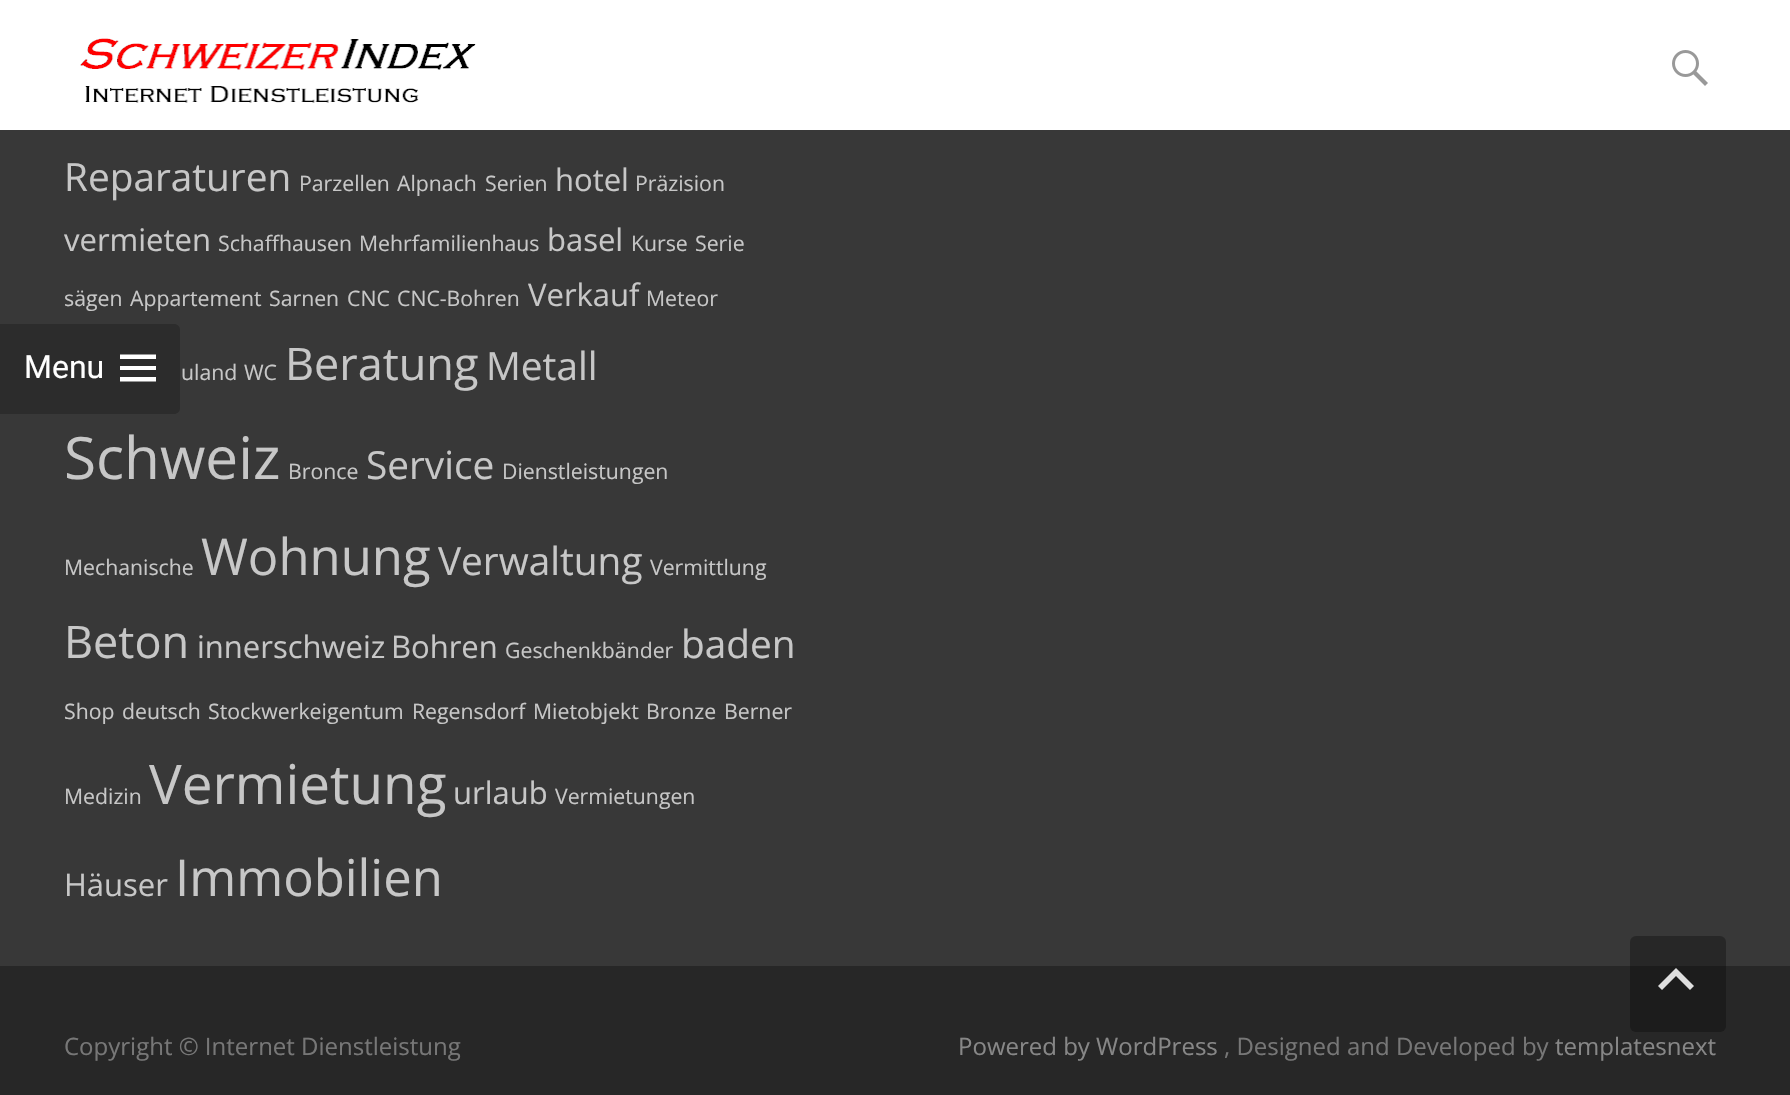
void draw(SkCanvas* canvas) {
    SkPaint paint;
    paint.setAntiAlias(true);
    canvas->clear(0xFF272727);
    paint.setColor(0xFF383838);
    canvas->drawRect(SkRect::MakeXYWH(0, 130, 1790, 836), paint);
    SkFont font1(fontMgr->matchFamilyStyle("Open Sans", SkFontStyle::Normal()), 38.75f);
    font1.setSubpixel(true);
    paint.setColor(0xFFC7C7C7);
    canvas->drawString("Reparaturen", 64, 191, font1, paint);
    SkFont font2(fontMgr->matchFamilyStyle("Open Sans", SkFontStyle::Normal()), 21.25f);
    font2.setSubpixel(true);
    canvas->drawString("Parzellen", 299, 191, font2, paint);
    canvas->drawString("Alpnach", 397, 191, font2, paint);
    canvas->drawString("Serien", 485, 191, font2, paint);
    SkFont font3(fontMgr->matchFamilyStyle("Open Sans", SkFontStyle::Normal()), 31);
    font3.setSubpixel(true);
    canvas->drawString("hotel", 555, 191, font3, paint);
    canvas->drawString("Präzision", 635, 191, font2, paint);
    canvas->drawString("vermieten", 64, 251, font3, paint);
    canvas->drawString("Schaffhausen", 218, 251, font2, paint);
    canvas->drawString("Mehrfamilienhaus", 359, 251, font2, paint);
    canvas->drawString("basel", 547, 251, font3, paint);
    canvas->drawString("Kurse", 631, 251, font2, paint);
    canvas->drawString("Serie", 695, 251, font2, paint);
    canvas->drawString("sägen", 64, 306, font2, paint);
    canvas->drawString("Appartement", 130, 306, font2, paint);
    canvas->drawString("Sarnen", 269, 306, font2, paint);
    canvas->drawString("CNC", 347, 306, font2, paint);
    canvas->drawString("CNC-Bohren", 397, 306, font2, paint);
    canvas->drawString("Verkauf", 528, 306, font3, paint);
    canvas->drawString("Meteor", 646, 306, font2, paint);
    canvas->drawString("uland", 181, 380, font2, paint);
    canvas->drawString("WC", 244, 380, font2, paint);
    SkFont font4(fontMgr->matchFamilyStyle("Open Sans", SkFontStyle::Normal()), 45);
    font4.setSubpixel(true);
    canvas->drawString("Beratung", 285, 380, font4, paint);
    canvas->drawString("Metall", 486, 380, font1, paint);
    SkFont font5(fontMgr->matchFamilyStyle("Open Sans", SkFontStyle::Normal()), 58.5f);
    font5.setSubpixel(true);
    canvas->drawString("Schweiz", 64, 479, font5, paint);
    canvas->drawString("Bronce", 288, 479, font2, paint);
    canvas->drawString("Service", 366, 479, font1, paint);
    canvas->drawString("Dienstleistungen", 502, 479, font2, paint);
    canvas->drawString("Mechanische", 64, 575, font2, paint);
    SkFont font6(fontMgr->matchFamilyStyle("Open Sans", SkFontStyle::Normal()), 50.75f);
    font6.setSubpixel(true);
    canvas->drawString("Wohnung", 201, 575, font6, paint);
    canvas->drawString("Verwaltung", 438, 575, font1, paint);
    canvas->drawString("Vermittlung", 650, 575, font2, paint);
    canvas->drawString("Beton", 64, 658, font4, paint);
    canvas->drawString("innerschweiz", 197, 658, font3, paint);
    canvas->drawString("Bohren", 391, 658, font3, paint);
    canvas->drawString("Geschenkbänder", 505, 658, font2, paint);
    canvas->drawString("baden", 681, 658, font1, paint);
    canvas->drawString("Shop", 64, 719, font2, paint);
    canvas->drawString("deutsch", 122, 719, font2, paint);
    canvas->drawString("Stockwerkeigentum", 208, 719, font2, paint);
    canvas->drawString("Regensdorf", 412, 719, font2, paint);
    canvas->drawString("Mietobjekt", 533, 719, font2, paint);
    canvas->drawString("Bronze", 646, 719, font2, paint);
    canvas->drawString("Berner", 724, 719, font2, paint);
    canvas->drawString("Medizin", 64, 804, font2, paint);
    SkFont font7(fontMgr->matchFamilyStyle("Open Sans", SkFontStyle::Normal()), 54.75f);
    font7.setSubpixel(true);
    canvas->drawString("Vermietung", 149, 804, font7, paint);
    canvas->drawString("urlaub", 453, 804, font3, paint);
    canvas->drawString("Vermietungen", 555, 804, font2, paint);
    canvas->drawString("Häuser", 64, 896, font3, paint);
    canvas->drawString("Immobilien", 175, 896, font6, paint);
    SkFont font8(fontMgr->matchFamilyStyle("Open Sans", SkFontStyle::Normal()), 24);
    font8.setSubpixel(true);
    paint.setColor(0xFF777777);
    canvas->drawString("Copyright © Internet Dienstleistung", 64, 1055, font8, paint);
    paint.setColor(0xFF878787);
    canvas->drawString("Powered by WordPress", 958, 1055, font8, paint);
    paint.setColor(0xFF777777);
    canvas->drawString(", Designed and Developed by", 1224, 1055, font8, paint);
    paint.setColor(0xFF878787);
    canvas->drawString("templatesnext", 1555, 1055, font8, paint);
    paint.setColor(0xFFFFFFFF);
    canvas->drawRect(SkRect::MakeXYWH(0, 0, 1790, 130), paint);
    canvas->drawImageRect(SkImages::DeferredFromEncodedData(SkData::MakeFromFileName("img1.png")), SkRect::MakeXYWH(80, 38, 396, 65), SkSamplingOptions());
    canvas->drawImageRect(SkImages::DeferredFromEncodedData(SkData::MakeFromFileName("img2.png")), SkRect::MakeXYWH(1672, 50, 36, 36), SkSamplingOptions());
    paint.setColor(0xCC282828);
    canvas->drawPath(SkPathBuilder().moveTo(0, 324).lineTo(174, 324).cubicTo(177.5f, 324, 180, 326.5f, 180, 330).lineTo(180, 408).cubicTo(180, 411.5f, 177.5f, 414, 174, 414).lineTo(0, 414).close().detach(), paint);
    SkFont font9(fontMgr->matchFamilyStyle("Roboto", SkFontStyle::Normal()), 32);
    font9.setSubpixel(true);
    paint.setColor(0xFFFFFFFF);
    canvas->drawString("Menu", 24, 378, font9, paint);
    canvas->drawPath(SkPathBuilder().moveTo(120, 381.5f).lineTo(120, 377).lineTo(156, 377).lineTo(156, 381.5f).close().moveTo(120, 370).lineTo(120, 366).lineTo(156, 366).lineTo(156, 370).close().moveTo(120, 359).lineTo(120, 354.5f).lineTo(156, 354.5f).lineTo(156, 359).close().detach(), paint);
    paint.setColor(0x4D000000);
    canvas->drawRoundRect(SkRect::MakeXYWH(1630, 936, 96, 96), 6, 6, paint);
    paint.setColor(0xFFDFDFDF);
    canvas->drawPath(SkPathBuilder().moveTo(1658, 986).lineTo(1676, 968).lineTo(1694, 986).lineTo(1690, 990).lineTo(1676, 976).lineTo(1662, 990).close().detach(), paint);
}
